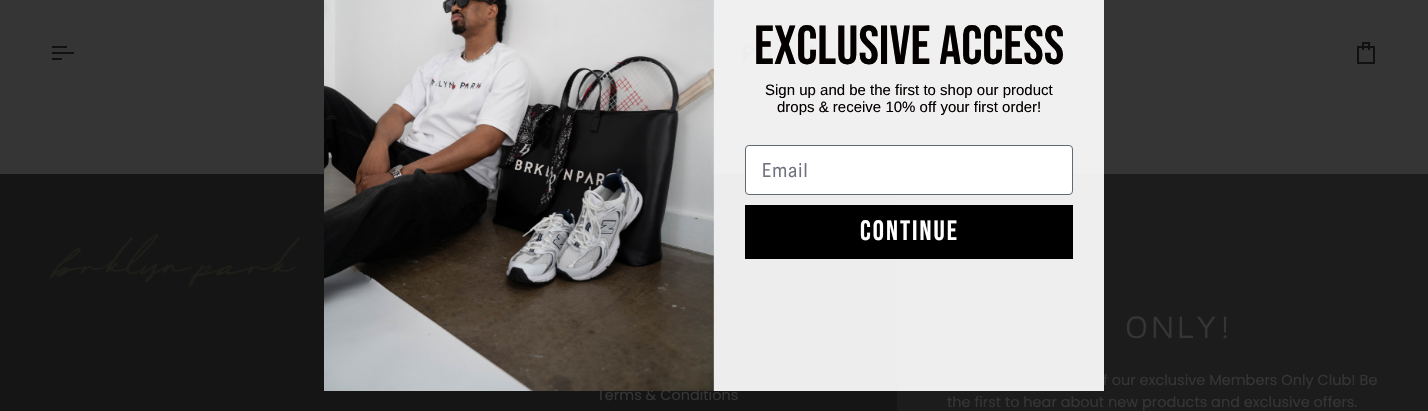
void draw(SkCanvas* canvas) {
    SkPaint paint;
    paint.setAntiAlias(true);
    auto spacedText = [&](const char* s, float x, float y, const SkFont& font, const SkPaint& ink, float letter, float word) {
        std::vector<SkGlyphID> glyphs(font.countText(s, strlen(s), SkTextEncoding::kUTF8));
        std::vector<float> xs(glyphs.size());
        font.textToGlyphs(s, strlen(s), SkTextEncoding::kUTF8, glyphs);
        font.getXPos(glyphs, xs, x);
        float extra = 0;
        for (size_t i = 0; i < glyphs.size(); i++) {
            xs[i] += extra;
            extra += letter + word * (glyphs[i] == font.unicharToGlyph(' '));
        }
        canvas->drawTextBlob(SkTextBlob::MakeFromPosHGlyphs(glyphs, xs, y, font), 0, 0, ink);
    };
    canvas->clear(0xFF353535);
    canvas->drawImageRect(SkImages::DeferredFromEncodedData(SkData::MakeFromFileName("img2.png")), SkRect::MakeXYWH(742, 44, 83, 18), SkSamplingOptions());
    paint.setColor(0xFF151515);
    canvas->drawRect(SkRect::MakeXYWH(0, 174, 897, 237), paint);
    SkFont font1(fontMgr->matchFamilyStyle("Poppins", SkFontStyle::Normal()), 14.5f);
    font1.setSubpixel(true);
    paint.setColor(0xFF353535);
    canvas->drawString("Terms & Conditions", 597, 400, font1, paint);
    paint.setColor(0xFF1C1C1C);
    canvas->drawRect(SkRect::MakeXYWH(897, 174, 531, 237), paint);
    paint.setColor(0xFF353535);
    canvas->drawString("f our exclusive Members Only Club! Be", 1103, 385, font1, paint);
    paint.setColor(0xEBFFFFFF);
    canvas->drawRect(SkRect::MakeXYWH(713, 0, 391, 391), paint);
    canvas->drawImageRect(SkImages::DeferredFromEncodedData(SkData::MakeFromFileName("img1.png")), SkRect::MakeXYWH(324, 0, 390, 391), SkSamplingOptions());
    SkFont font2(fontMgr->matchFamilyStyle("Bebas Neue", SkFontStyle::Normal()), 55);
    font2.setSubpixel(true);
    paint.setColor(0xFF050000);
    canvas->drawString("EXCLUSIVE ACCESS", 754, 64, font2, paint);
    SkFont font3(fontMgr->matchFamilyStyle("Liberation Sans", SkFontStyle::Normal()), 15);
    font3.setSubpixel(true);
    canvas->drawString("Sign up and be the first to shop our product", 765, 95, font3, paint);
    canvas->drawString("drops & receive 10% off your first order!", 777, 112, font3, paint);
    paint.setColor(0xFFFFFFFF);
    canvas->drawRoundRect(SkRect::MakeXYWH(745.5f, 145.5f, 327, 49), 3.5f, 3.5f, paint);
    paint.setStyle(SkPaint::kStroke_Style);
    paint.setStrokeWidth(1);
    paint.setColor(0xFF606A72);
    canvas->drawRoundRect(SkRect::MakeXYWH(745.5f, 145.5f, 327, 49), 3.5f, 3.5f, paint);
    SkFont font4(fontMgr->matchFamilyStyle("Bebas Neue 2", SkFontStyle::Normal()), 20);
    font4.setSubpixel(true);
    paint.setStyle(SkPaint::kFill_Style);
    paint.setColor(0xFF71727F);
    spacedText("Email", 762, 177, font4, paint, 1, 0);
    paint.setColor(0xFF000000);
    canvas->drawRect(SkRect::MakeXYWH(745, 205, 328, 54), paint);
    SkFont font5(fontMgr->matchFamilyStyle("Bebas Neue", SkFontStyle::Normal()), 28);
    font5.setSubpixel(true);
    paint.setColor(0xFFFFFFFF);
    spacedText("CONTINUE", 860, 240, font5, paint, 2, 0);
    paint.setStyle(SkPaint::kStroke_Style);
    paint.setStrokeWidth(2);
    paint.setStrokeCap(SkPaint::kSquare_Cap);
    paint.setColor(0xFF111111);
    canvas->drawPath(SkPathBuilder().moveTo(66, 47).lineTo(53, 47).moveTo(73, 53).lineTo(53, 53).moveTo(61, 59).lineTo(53, 59).detach(), paint);
    paint.setStrokeCap(SkPaint::kButt_Cap);
    canvas->drawPath(SkPathBuilder().moveTo(1358, 47).lineTo(1374, 47).lineTo(1374, 63).lineTo(1358, 63).close().moveTo(1363, 50).lineTo(1363, 43).lineTo(1369, 43).lineTo(1369, 50).detach(), paint);
    canvas->drawImageRect(SkImages::DeferredFromEncodedData(SkData::MakeFromFileName("img3.png")), SkRect::MakeXYWH(50, 234, 250, 54), SkSamplingOptions());
    SkFont font6(fontMgr->matchFamilyStyle("Maven Pro", SkFontStyle::Normal()), 32);
    font6.setSubpixel(true);
    paint.setStyle(SkPaint::kFill_Style);
    paint.setColor(0xFF353535);
    spacedText("ONLY!", 1125, 338, font6, paint, 3, 0);
    canvas->drawString("the first to hear about new products and exclusive offers.", 947, 407, font1, paint);
}
